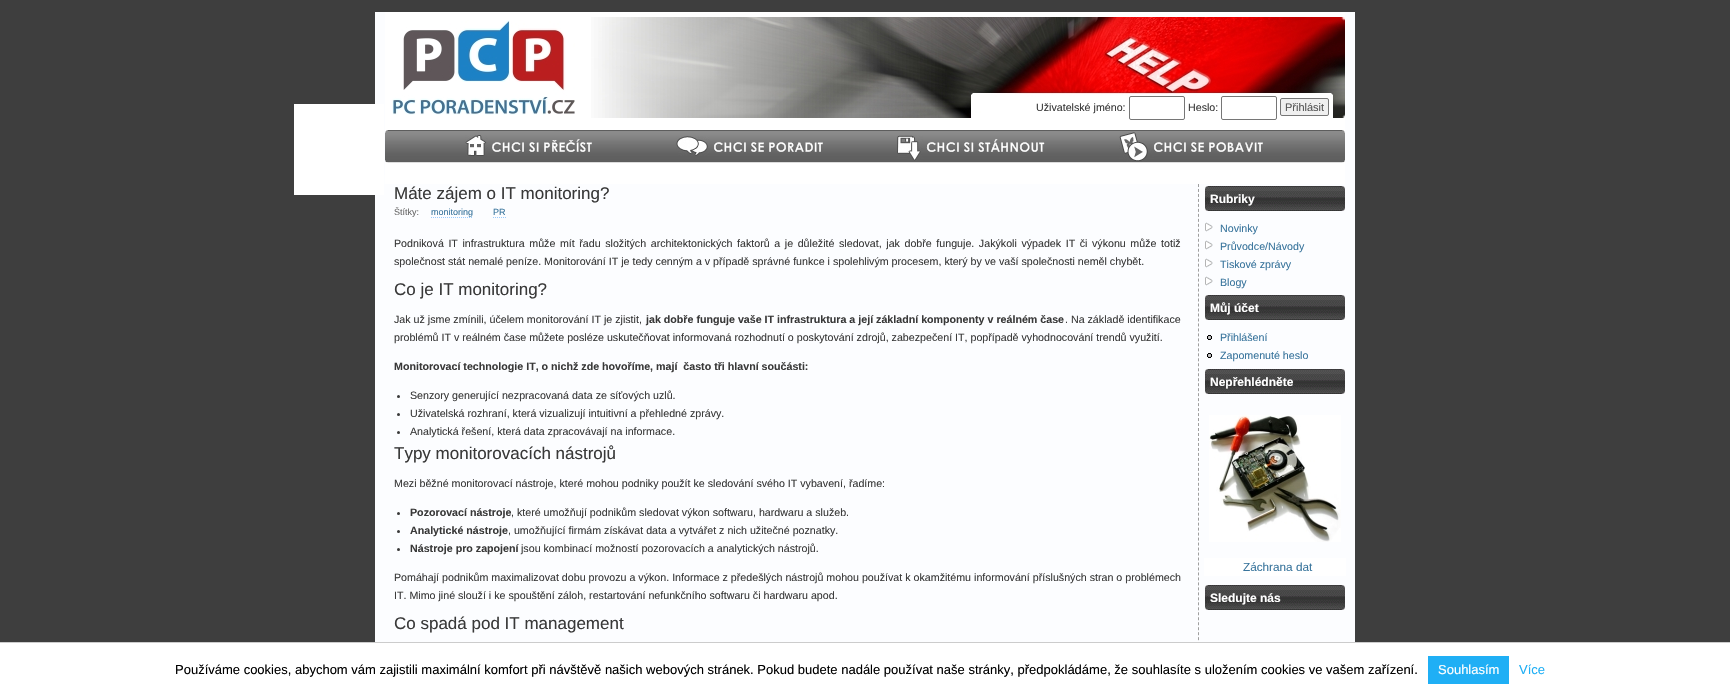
void draw(SkCanvas* canvas) {
    SkPaint paint;
    paint.setAntiAlias(true);
    auto spacedText = [&](const char* s, float x, float y, const SkFont& font, const SkPaint& ink, float letter, float word) {
        std::vector<SkGlyphID> glyphs(font.countText(s, strlen(s), SkTextEncoding::kUTF8));
        std::vector<float> xs(glyphs.size());
        font.textToGlyphs(s, strlen(s), SkTextEncoding::kUTF8, glyphs);
        font.getXPos(glyphs, xs, x);
        float extra = 0;
        for (size_t i = 0; i < glyphs.size(); i++) {
            xs[i] += extra;
            extra += letter + word * (glyphs[i] == font.unicharToGlyph(' '));
        }
        canvas->drawTextBlob(SkTextBlob::MakeFromPosHGlyphs(glyphs, xs, y, font), 0, 0, ink);
    };
    canvas->clear(0xFF3E3E3E);
    paint.setColor(0xFFFFFFFF);
    canvas->drawRect(SkRect::MakeXYWH(385, 12, 960, 172), paint);
    paint.setColor(0xFFFCFDFF);
    canvas->drawRect(SkRect::MakeXYWH(1345, 12, 10, 172), paint);
    canvas->drawRect(SkRect::MakeXYWH(375, 12, 10, 163), paint);
    canvas->drawImageRect(SkImages::DeferredFromEncodedData(SkData::MakeFromFileName("img1.png")), SkRect::MakeXYWH(392, 20, 183, 95), SkSamplingOptions());
    canvas->drawImageRect(SkImages::DeferredFromEncodedData(SkData::MakeFromFileName("img2.png")), SkRect::MakeXYWH(591, 17, 754, 101), SkSamplingOptions());
    SkFont font1(fontMgr->matchFamilyStyle("Liberation Sans", SkFontStyle::Normal()), 10.67f);
    font1.setSubpixel(true);
    paint.setColor(0xFF393939);
    canvas->drawString("Uživatelské jméno:", 1036, 111, font1, paint);
    paint.setStyle(SkPaint::kStroke_Style);
    paint.setStrokeWidth(1);
    paint.setColor(0xFF767676);
    canvas->drawRoundRect(SkRect::MakeXYWH(1129.5f, 96.5f, 55, 23), 1.5f, 1.5f, paint);
    paint.setStyle(SkPaint::kFill_Style);
    paint.setColor(0xFF393939);
    canvas->drawString("Heslo:", 1188, 111, font1, paint);
    paint.setStyle(SkPaint::kStroke_Style);
    paint.setColor(0xFF767676);
    canvas->drawRoundRect(SkRect::MakeXYWH(1221.5f, 96.5f, 55, 23), 1.5f, 1.5f, paint);
    paint.setStyle(SkPaint::kFill_Style);
    paint.setColor(0xFFEFEFEF);
    canvas->drawRoundRect(SkRect::MakeXYWH(1280.5f, 98.5f, 48, 17), 1.5f, 1.5f, paint);
    paint.setStyle(SkPaint::kStroke_Style);
    paint.setColor(0xFF767676);
    canvas->drawRoundRect(SkRect::MakeXYWH(1280.5f, 98.5f, 48, 17), 1.5f, 1.5f, paint);
    SkFont font2(fontMgr->matchFamilyStyle("Liberation Sans", SkFontStyle::Normal()), 11);
    font2.setSubpixel(true);
    paint.setStyle(SkPaint::kFill_Style);
    paint.setColor(0xFF555555);
    canvas->drawString("Přihlásit", 1285, 111, font2, paint);
    canvas->drawImageRect(SkImages::DeferredFromEncodedData(SkData::MakeFromFileName("img3.png")), SkRect::MakeXYWH(385, 130, 960, 33), SkSamplingOptions());
    canvas->drawImageRect(SkImages::DeferredFromEncodedData(SkData::MakeFromFileName("img4.png")), SkRect::MakeXYWH(465, 135, 127, 21), SkSamplingOptions());
    canvas->drawImageRect(SkImages::DeferredFromEncodedData(SkData::MakeFromFileName("img5.png")), SkRect::MakeXYWH(676, 136, 147, 20), SkSamplingOptions());
    canvas->drawImageRect(SkImages::DeferredFromEncodedData(SkData::MakeFromFileName("img6.png")), SkRect::MakeXYWH(897, 135, 148, 26), SkSamplingOptions());
    canvas->drawImageRect(SkImages::DeferredFromEncodedData(SkData::MakeFromFileName("img7.png")), SkRect::MakeXYWH(1119, 132, 144, 30), SkSamplingOptions());
    paint.setColor(0xFFFCFDFF);
    canvas->drawRect(SkRect::MakeXYWH(375, 184, 980, 458), paint);
    paint.setColor(0xFFFDFEFF);
    canvas->drawRect(SkRect::MakeXYWH(379, 175, 6, 9), paint);
    SkFont font3(fontMgr->matchFamilyStyle("Liberation Sans", SkFontStyle::Normal()), 17);
    font3.setSubpixel(true);
    paint.setColor(0xFF393939);
    canvas->drawString("Máte zájem o IT monitoring?", 394, 199, font3, paint);
    SkFont font4(fontMgr->matchFamilyStyle("Liberation Sans", SkFontStyle::Normal()), 9);
    font4.setSubpixel(true);
    paint.setColor(0xFF666666);
    canvas->drawString("Štítky:", 394, 215, font4, paint);
    paint.setColor(0xFF38749C);
    canvas->drawString("monitoring", 431, 215, font4, paint);
    paint.setStyle(SkPaint::kStroke_Style);
    paint.setColor(0xFF99CCFF);
    paint.setPathEffect(SkDashPathEffect::Make({{1, 1}}, 0));
    canvas->drawPath(SkPathBuilder().moveTo(431, 217.5f).lineTo(473, 217.5f).detach(), paint);
    paint.setPathEffect(nullptr);
    paint.setStyle(SkPaint::kFill_Style);
    paint.setColor(0xFF38749C);
    canvas->drawString("PR", 493, 215, font4, paint);
    paint.setStyle(SkPaint::kStroke_Style);
    paint.setColor(0xFF99CCFF);
    paint.setPathEffect(SkDashPathEffect::Make({{1, 1}}, 0));
    canvas->drawPath(SkPathBuilder().moveTo(493, 217.5f).lineTo(506, 217.5f).detach(), paint);
    paint.setPathEffect(nullptr);
    paint.setStyle(SkPaint::kFill_Style);
    paint.setColor(0xFFFFFFFF);
    canvas->drawRect(SkRect::MakeXYWH(294, 104, 90, 91), paint);
    paint.setColor(0xFF393939);
    spacedText("Podniková IT infrastruktura může mít řadu složitých architektonických faktorů a je důležité sledovat, jak dobře funguje. Jakýkoli výpadek IT či výkonu může totiž", 394, 247, font1, paint, 0, 1.6f);
    canvas->drawString("společnost stát nemalé peníze. Monitorování IT je tedy cenným a v případě správné funkce i spolehlivým procesem, který by ve vaší společnosti neměl chybět.", 394, 265, font1, paint);
    canvas->drawString("Co je IT monitoring?", 394, 295, font3, paint);
    canvas->drawString("Jak už jsme zmínili, účelem monitorování IT je zjistit,", 394, 323, font1, paint);
    SkFont font5(fontMgr->matchFamilyStyle("Liberation Sans", SkFontStyle::Bold()), 10.67f);
    font5.setSubpixel(true);
    canvas->drawString("jak dobře funguje vaše IT infrastruktura a její základní komponenty v reálném čase", 646, 323, font5, paint);
    canvas->drawString(". Na základě identifikace", 1065, 323, font1, paint);
    canvas->drawString("problémů IT v reálném čase můžete posléze uskutečňovat informovaná rozhodnutí o poskytování zdrojů, zabezpečení IT, popřípadě vyhodnocování trendů využití.", 394, 341, font1, paint);
    canvas->drawString("Monitorovací technologie IT, o nichž zde hovoříme, mají  často tři hlavní součásti:", 394, 370, font5, paint);
    canvas->drawCircle(398.5f, 396.5f, 1.5f, paint);
    canvas->drawString("Senzory generující nezpracovaná data ze síťových uzlů.", 410, 399, font1, paint);
    canvas->drawCircle(398.5f, 414.5f, 1.5f, paint);
    canvas->drawString("Uživatelská rozhraní, která vizualizují intuitivní a přehledné zprávy.", 410, 417, font1, paint);
    canvas->drawCircle(398.5f, 432.5f, 1.5f, paint);
    canvas->drawString("Analytická řešení, která data zpracovávají na informace.", 410, 435, font1, paint);
    canvas->drawString("Typy monitorovacích nástrojů", 394, 459, font3, paint);
    canvas->drawString("Mezi běžné monitorovací nástroje, které mohou podniky použít ke sledování svého IT vybavení, řadíme:", 394, 487, font1, paint);
    canvas->drawCircle(398.5f, 513.5f, 1.5f, paint);
    canvas->drawString("Pozorovací nástroje", 410, 516, font5, paint);
    canvas->drawString(", které umožňují podnikům sledovat výkon softwaru, hardwaru a služeb.", 511, 516, font1, paint);
    canvas->drawCircle(398.5f, 531.5f, 1.5f, paint);
    canvas->drawString("Analytické nástroje", 410, 534, font5, paint);
    canvas->drawString(", umožňující firmám získávat data a vytvářet z nich užitečné poznatky.", 508, 534, font1, paint);
    canvas->drawCircle(398.5f, 549.5f, 1.5f, paint);
    canvas->drawString("Nástroje pro zapojení", 410, 552, font5, paint);
    canvas->drawString("jsou kombinací možností pozorovacích a analytických nástrojů.", 521, 552, font1, paint);
    canvas->drawString("Pomáhají podnikům maximalizovat dobu provozu a výkon. Informace z předešlých nástrojů mohou používat k okamžitému informování příslušných stran o problémech", 394, 581, font1, paint);
    canvas->drawString("IT. Mimo jiné slouží i ke spouštění záloh, restartování nefunkčního softwaru či hardwaru apod.", 394, 599, font1, paint);
    canvas->drawString("Co spadá pod IT management", 394, 629, font3, paint);
    paint.setStyle(SkPaint::kStroke_Style);
    paint.setColor(0xFF9E9E9E);
    paint.setPathEffect(SkDashPathEffect::Make({{3, 1.98f}}, 0));
    canvas->drawPath(SkPathBuilder().moveTo(1198.5f, 184).lineTo(1198.5f, 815).detach(), paint);
    paint.setPathEffect(nullptr);
    canvas->drawImageRect(SkImages::DeferredFromEncodedData(SkData::MakeFromFileName("img8.png")), SkRect::MakeXYWH(1205, 186, 140, 25), SkSamplingOptions());
    SkFont font6(fontMgr->matchFamilyStyle("Liberation Sans", SkFontStyle::Bold()), 12);
    font6.setSubpixel(true);
    paint.setStyle(SkPaint::kFill_Style);
    paint.setColor(0xFFFFFFFF);
    canvas->drawString("Rubriky", 1210, 203, font6, paint);
    canvas->drawImageRect(SkImages::DeferredFromEncodedData(SkData::MakeFromFileName("img9.png")), SkRect::MakeXYWH(1205, 222, 8, 10), SkSamplingOptions());
    paint.setColor(0xFF38749C);
    canvas->drawString("Novinky", 1220, 232, font1, paint);
    canvas->drawImageRect(SkImages::DeferredFromEncodedData(SkData::MakeFromFileName("img9.png")), SkRect::MakeXYWH(1205, 240, 8, 10), SkSamplingOptions());
    canvas->drawString("Průvodce/Návody", 1220, 250, font1, paint);
    canvas->drawImageRect(SkImages::DeferredFromEncodedData(SkData::MakeFromFileName("img9.png")), SkRect::MakeXYWH(1205, 258, 8, 10), SkSamplingOptions());
    canvas->drawString("Tiskové zprávy", 1220, 268, font1, paint);
    canvas->drawImageRect(SkImages::DeferredFromEncodedData(SkData::MakeFromFileName("img9.png")), SkRect::MakeXYWH(1205, 276, 8, 10), SkSamplingOptions());
    canvas->drawString("Blogy", 1220, 286, font1, paint);
    canvas->drawImageRect(SkImages::DeferredFromEncodedData(SkData::MakeFromFileName("img8.png")), SkRect::MakeXYWH(1205, 295, 140, 25), SkSamplingOptions());
    paint.setColor(0xFFFFFFFF);
    canvas->drawString("Můj účet", 1210, 312, font6, paint);
    canvas->drawImageRect(SkImages::DeferredFromEncodedData(SkData::MakeFromFileName("img10.png")), SkRect::MakeXYWH(1207, 335, 5, 5), SkSamplingOptions());
    paint.setColor(0xFF38749C);
    canvas->drawString("Přihlášení", 1220, 341, font1, paint);
    canvas->drawImageRect(SkImages::DeferredFromEncodedData(SkData::MakeFromFileName("img10.png")), SkRect::MakeXYWH(1207, 353, 5, 5), SkSamplingOptions());
    canvas->drawString("Zapomenuté heslo", 1220, 359, font1, paint);
    canvas->drawImageRect(SkImages::DeferredFromEncodedData(SkData::MakeFromFileName("img8.png")), SkRect::MakeXYWH(1205, 369, 140, 25), SkSamplingOptions());
    paint.setColor(0xFFFFFFFF);
    canvas->drawString("Nepřehlédněte", 1210, 386, font6, paint);
    canvas->drawImageRect(SkImages::DeferredFromEncodedData(SkData::MakeFromFileName("img11.png")), SkRect::MakeXYWH(1209, 415, 132, 127), SkSamplingOptions());
    canvas->drawRect(SkRect::MakeXYWH(1204, 558, 142, 18), paint);
    SkFont font7(fontMgr->matchFamilyStyle("Liberation Sans", SkFontStyle::Normal()), 11.75f);
    font7.setSubpixel(true);
    paint.setColor(0xFF38749C);
    canvas->drawString("Záchrana dat", 1243, 571, font7, paint);
    canvas->drawImageRect(SkImages::DeferredFromEncodedData(SkData::MakeFromFileName("img8.png")), SkRect::MakeXYWH(1205, 585, 140, 25), SkSamplingOptions());
    paint.setColor(0xFFFFFFFF);
    canvas->drawString("Sledujte nás", 1210, 602, font6, paint);
    canvas->drawRect(SkRect::MakeXYWH(0, 643, 1730, 54), paint);
    paint.setColor(0xFFCCCCCC);
    canvas->drawRect(SkRect::MakeXYWH(0, 642, 1730, 1), paint);
    SkFont font8(fontMgr->matchFamilyStyle("Liberation Sans", SkFontStyle::Normal()), 13);
    font8.setSubpixel(true);
    paint.setColor(0xFF000000);
    canvas->drawString("Používáme cookies, abychom vám zajistili maximální komfort při návštěvě našich webových stránek. Pokud budete nadále používat naše stránky, předpokládáme, že souhlasíte s uložením cookies ve vašem zařízení.", 175, 674, font8, paint);
    paint.setColor(0xFF1FAFF5);
    canvas->drawRect(SkRect::MakeXYWH(1428, 656, 81, 28), paint);
    paint.setColor(0xFFFFFFFF);
    canvas->drawString("Souhlasím", 1438, 674, font8, paint);
    paint.setColor(0xFF1FAFF5);
    canvas->drawString("Více", 1519, 674, font8, paint);
}
